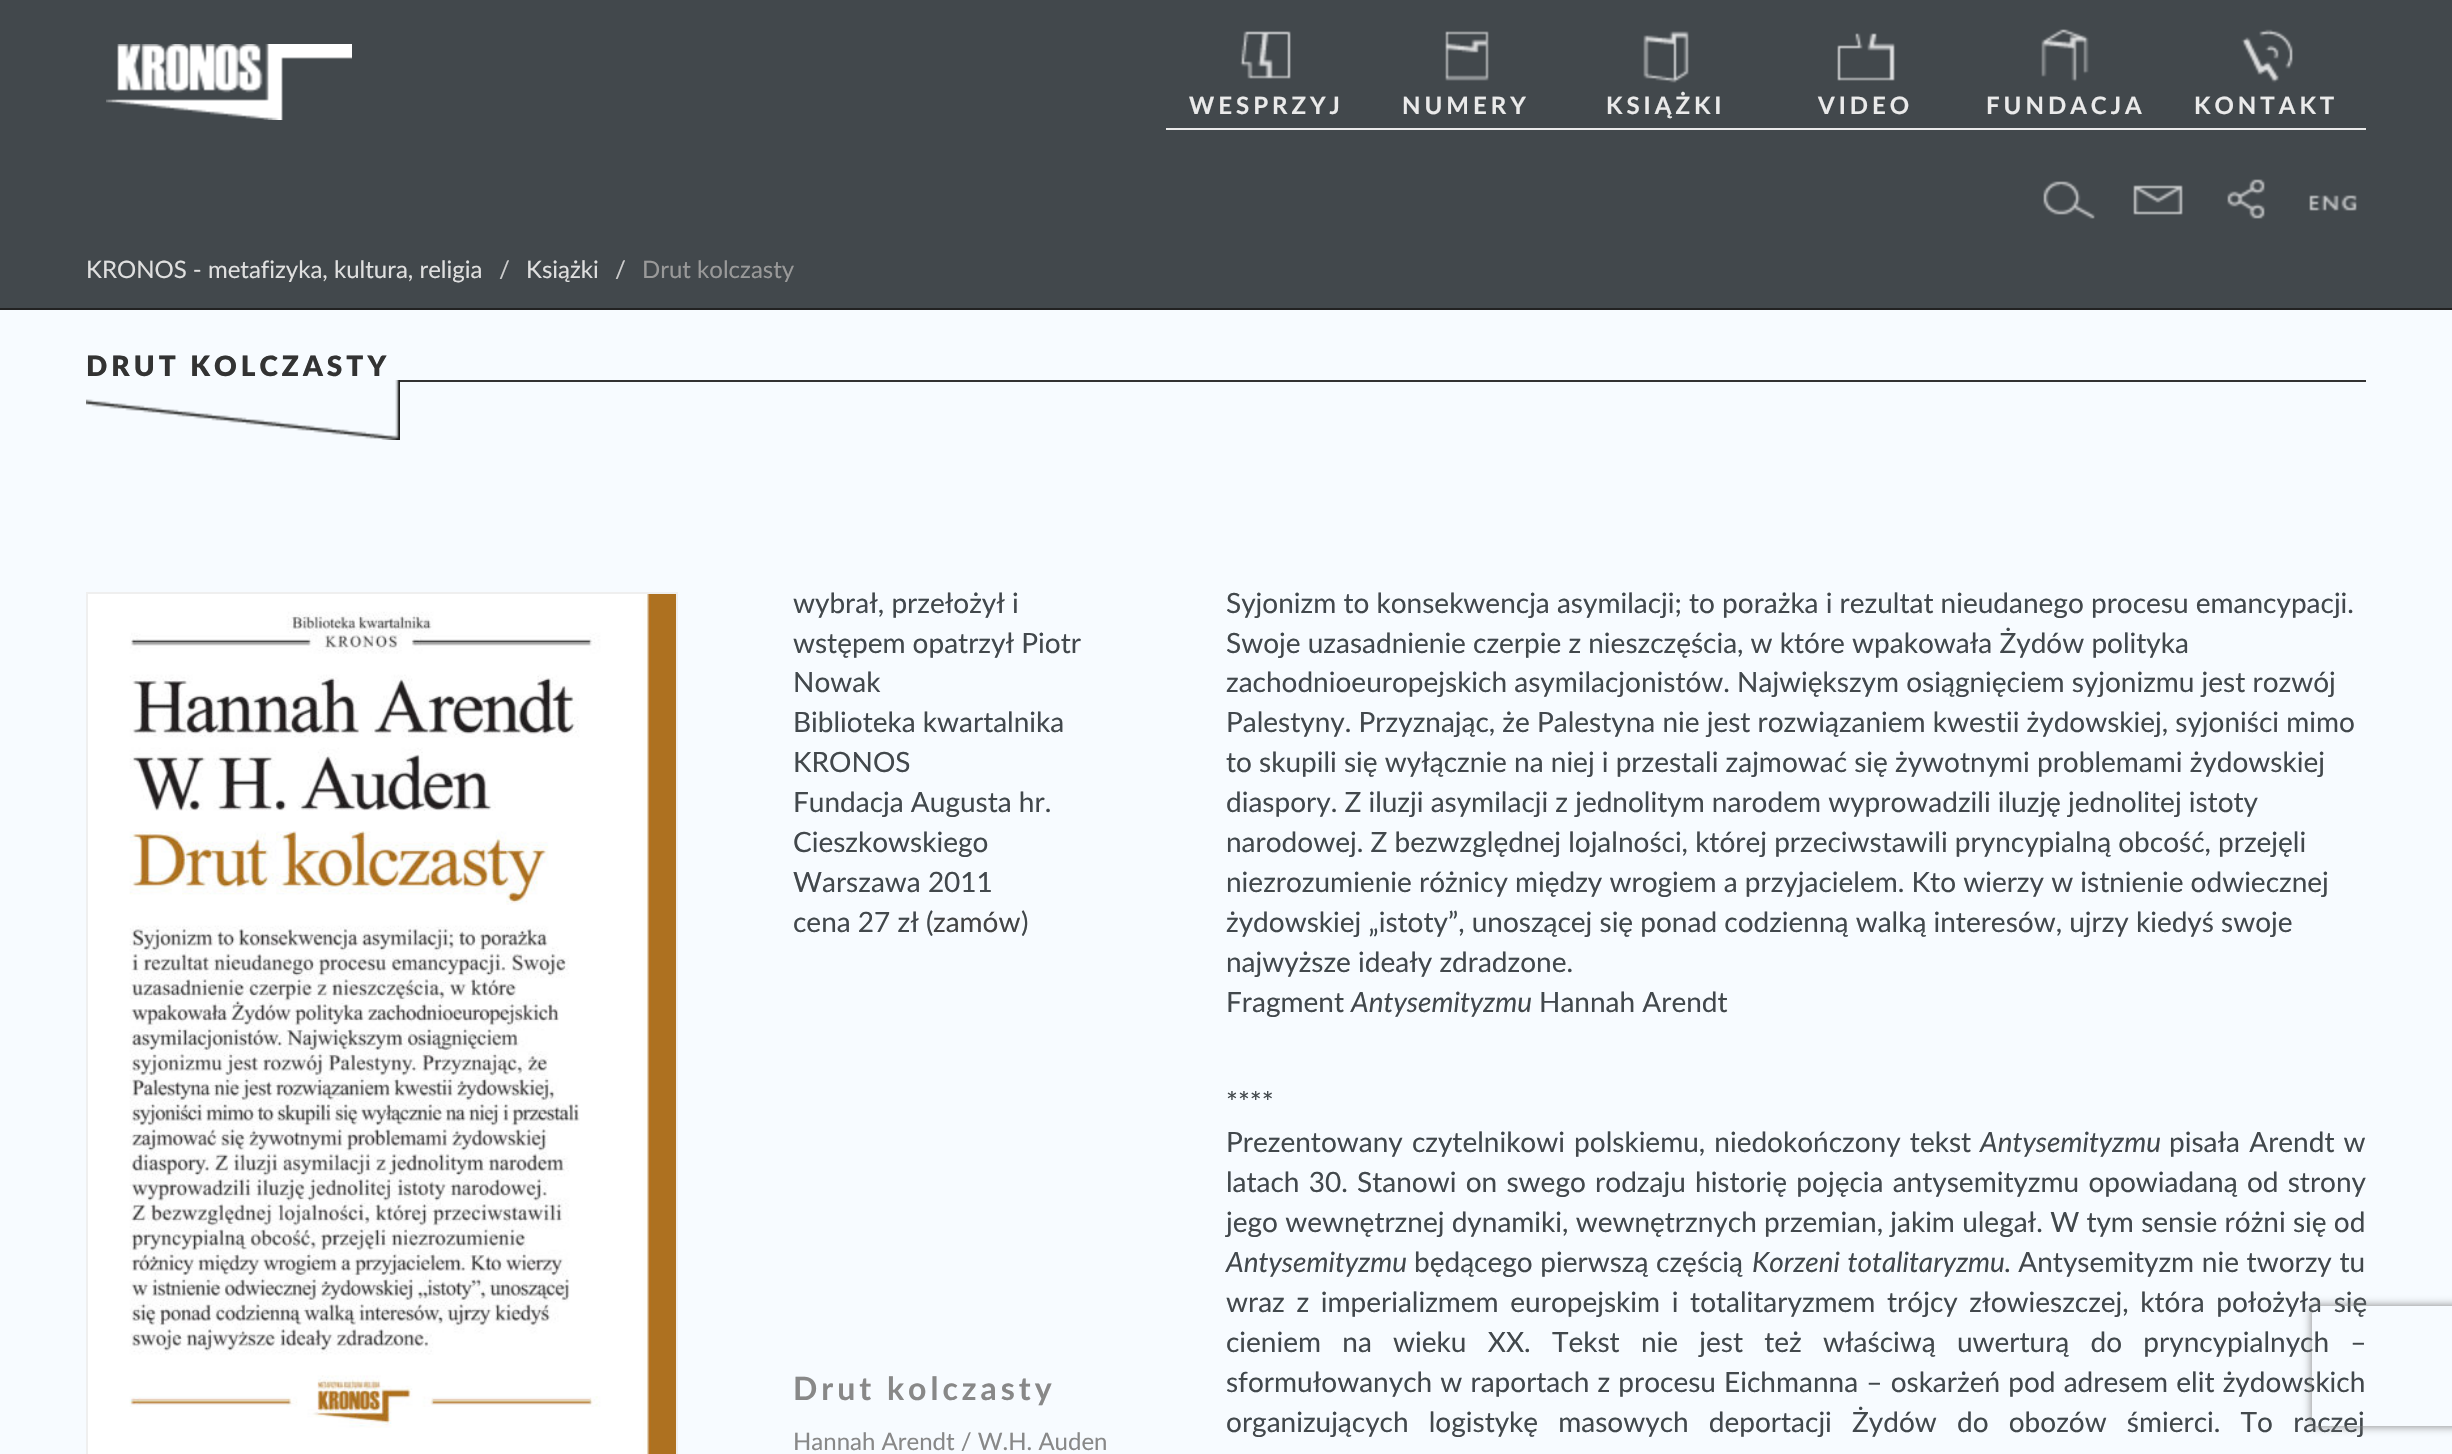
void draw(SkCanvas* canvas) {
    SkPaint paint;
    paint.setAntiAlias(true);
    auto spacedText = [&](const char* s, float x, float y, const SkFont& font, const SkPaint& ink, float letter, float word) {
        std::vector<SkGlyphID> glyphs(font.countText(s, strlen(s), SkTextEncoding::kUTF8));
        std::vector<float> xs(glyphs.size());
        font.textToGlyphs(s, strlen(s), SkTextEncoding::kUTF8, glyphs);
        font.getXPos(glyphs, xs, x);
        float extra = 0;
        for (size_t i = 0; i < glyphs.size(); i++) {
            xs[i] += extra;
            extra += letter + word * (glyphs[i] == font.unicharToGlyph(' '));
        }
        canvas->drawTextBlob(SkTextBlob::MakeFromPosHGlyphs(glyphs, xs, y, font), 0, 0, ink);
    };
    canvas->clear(0xFFF7FBFF);
    paint.setColor(0xFF42484C);
    canvas->drawRect(SkRect::MakeXYWH(0, 0, 2452, 308), paint);
    paint.setColor(0xFF222222);
    canvas->drawRect(SkRect::MakeXYWH(0, 308, 2452, 2), paint);
    canvas->drawImageRect(SkImages::DeferredFromEncodedData(SkData::MakeFromFileName("img1.png")), SkRect::MakeXYWH(106, 44, 246, 76), SkSamplingOptions());
    canvas->drawImageRect(SkImages::DeferredFromEncodedData(SkData::MakeFromFileName("img2.png")), SkRect::MakeXYWH(1240, 31, 51, 48), SkSamplingOptions());
    SkFont font1(fontMgr->matchFamilyStyle("Lato", SkFontStyle::Bold()), 24);
    font1.setSubpixel(true);
    paint.setColor(0xFFEAEAEA);
    spacedText("WESPRZYJ", 1189, 114, font1, paint, 4, 0);
    canvas->drawRect(SkRect::MakeXYWH(1166, 128, 1200, 2), paint);
    canvas->drawImageRect(SkImages::DeferredFromEncodedData(SkData::MakeFromFileName("img3.png")), SkRect::MakeXYWH(1445, 31, 44, 50), SkSamplingOptions());
    spacedText("NUMERY", 1402, 114, font1, paint, 4, 0);
    canvas->drawImageRect(SkImages::DeferredFromEncodedData(SkData::MakeFromFileName("img4.png")), SkRect::MakeXYWH(1643, 31, 46, 52), SkSamplingOptions());
    spacedText("KSIĄŻKI", 1606, 114, font1, paint, 4, 0);
    canvas->drawImageRect(SkImages::DeferredFromEncodedData(SkData::MakeFromFileName("img5.png")), SkRect::MakeXYWH(1837, 33, 58, 48), SkSamplingOptions());
    spacedText("VIDEO", 1818, 114, font1, paint, 4, 0);
    canvas->drawImageRect(SkImages::DeferredFromEncodedData(SkData::MakeFromFileName("img6.png")), SkRect::MakeXYWH(2041, 29, 48, 53), SkSamplingOptions());
    spacedText("FUNDACJA", 1986, 114, font1, paint, 4, 0);
    canvas->drawImageRect(SkImages::DeferredFromEncodedData(SkData::MakeFromFileName("img7.png")), SkRect::MakeXYWH(2241, 29, 52, 54), SkSamplingOptions());
    spacedText("KONTAKT", 2194, 114, font1, paint, 4, 0);
    canvas->drawImageRect(SkImages::DeferredFromEncodedData(SkData::MakeFromFileName("img8.png")), SkRect::MakeXYWH(2043, 181, 52, 38), SkSamplingOptions());
    canvas->drawImageRect(SkImages::DeferredFromEncodedData(SkData::MakeFromFileName("img9.png")), SkRect::MakeXYWH(2133, 185, 50, 30), SkSamplingOptions());
    canvas->drawImageRect(SkImages::DeferredFromEncodedData(SkData::MakeFromFileName("img10.png")), SkRect::MakeXYWH(2227, 179, 38, 40), SkSamplingOptions());
    canvas->drawImageRect(SkImages::DeferredFromEncodedData(SkData::MakeFromFileName("img11.png")), SkRect::MakeXYWH(2309, 195, 48, 16), SkSamplingOptions());
    SkFont font2(fontMgr->matchFamilyStyle("Lato", SkFontStyle::Normal()), 24);
    font2.setSubpixel(true);
    paint.setColor(0xFFDFDFDF);
    canvas->drawString("KRONOS - metafizyka, kultura, religia", 86, 278, font2, paint);
    paint.setColor(0xFFCCCCCC);
    canvas->drawString("/", 499, 278, font2, paint);
    paint.setColor(0xFFDFDFDF);
    canvas->drawString("Książki", 526, 278, font2, paint);
    paint.setColor(0xFFCCCCCC);
    canvas->drawString("/", 615, 278, font2, paint);
    paint.setColor(0xFF999999);
    canvas->drawString("Drut kolczasty", 642, 278, font2, paint);
    paint.setColor(0xFF333333);
    canvas->drawRect(SkRect::MakeXYWH(400, 380, 1966, 2), paint);
    SkFont font3(fontMgr->matchFamilyStyle("Lato", SkFontStyle(900, SkFontStyle::kNormal_Width, SkFontStyle::kUpright_Slant)), 28);
    font3.setSubpixel(true);
    spacedText("DRUT KOLCZASTY", 86, 376, font3, paint, 4, 0);
    canvas->drawImageRect(SkImages::DeferredFromEncodedData(SkData::MakeFromFileName("img12.png")), SkRect::MakeXYWH(86, 380, 314, 60), SkSamplingOptions());
    paint.setStyle(SkPaint::kStroke_Style);
    paint.setStrokeWidth(2);
    paint.setColor(0xFFEFEFEF);
    canvas->drawRect(SkRect::MakeXYWH(87, 593, 590, 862), paint);
    canvas->drawImageRect(SkImages::DeferredFromEncodedData(SkData::MakeFromFileName("img13.png")), SkRect::MakeXYWH(88, 594, 588, 860), SkSamplingOptions());
    SkFont font4(fontMgr->matchFamilyStyle("Lato", SkFontStyle::Normal()), 28);
    font4.setSubpixel(true);
    paint.setStyle(SkPaint::kFill_Style);
    paint.setColor(0xFF42484C);
    canvas->drawString("wybrał, przełożył i", 793, 613, font4, paint);
    canvas->drawString("wstępem opatrzył Piotr", 793, 653, font4, paint);
    canvas->drawString("Nowak", 793, 692, font4, paint);
    canvas->drawString("Biblioteka kwartalnika", 793, 732, font4, paint);
    canvas->drawString("KRONOS", 793, 772, font4, paint);
    canvas->drawString("Fundacja Augusta hr.", 793, 812, font4, paint);
    canvas->drawString("Cieszkowskiego", 793, 852, font4, paint);
    canvas->drawString("Warszawa 2011", 793, 892, font4, paint);
    canvas->drawString("cena 27 zł (", 793, 932, font4, paint);
    paint.setColor(0xFF444444);
    canvas->drawString("zamów", 933, 932, font4, paint);
    paint.setColor(0xFF42484C);
    canvas->drawString(")", 1021, 932, font4, paint);
    SkFont font5(fontMgr->matchFamilyStyle("Lato", SkFontStyle::Bold()), 32);
    font5.setSubpixel(true);
    paint.setColor(0xFF888888);
    spacedText("Drut kolczasty", 793, 1400, font5, paint, 4, 0);
    canvas->drawString("Hannah Arendt / W.H. Auden", 793, 1450, font2, paint);
    paint.setColor(0xFF42484C);
    canvas->drawString("Syjonizm to konsekwencja asymilacji; to porażka i rezultat nieudanego procesu emancypacji.", 1226, 613, font4, paint);
    canvas->drawString("Swoje uzasadnienie czerpie z nieszczęścia, w które wpakowała Żydów polityka", 1226, 653, font4, paint);
    canvas->drawString("zachodnioeuropejskich asymilacjonistów. Największym osiągnięciem syjonizmu jest rozwój", 1226, 692, font4, paint);
    canvas->drawString("Palestyny. Przyznając, że Palestyna nie jest rozwiązaniem kwestii żydowskiej, syjoniści mimo", 1226, 732, font4, paint);
    canvas->drawString("to skupili się wyłącznie na niej i przestali zajmować się żywotnymi problemami żydowskiej", 1226, 772, font4, paint);
    canvas->drawString("diaspory. Z iluzji asymilacji z jednolitym narodem wyprowadzili iluzję jednolitej istoty", 1226, 812, font4, paint);
    canvas->drawString("narodowej. Z bezwzględnej lojalności, której przeciwstawili pryncypialną obcość, przejęli", 1226, 852, font4, paint);
    canvas->drawString("niezrozumienie różnicy między wrogiem a przyjacielem. Kto wierzy w istnienie odwiecznej", 1226, 892, font4, paint);
    canvas->drawString("żydowskiej „istoty”, unoszącej się ponad codzienną walką interesów, ujrzy kiedyś swoje", 1226, 932, font4, paint);
    canvas->drawString("najwyższe ideały zdradzone.", 1226, 972, font4, paint);
    canvas->drawString("Fragment", 1226, 1012, font4, paint);
    SkFont font6(fontMgr->matchFamilyStyle("Lato", SkFontStyle::Italic()), 28);
    font6.setSubpixel(true);
    canvas->drawString("Antysemityzmu", 1351, 1012, font6, paint);
    canvas->drawString("Hannah Arendt", 1539, 1012, font4, paint);
    canvas->drawString("****", 1226, 1112, font4, paint);
    spacedText("Prezentowany czytelnikowi polskiemu, niedokończony tekst", 1226, 1152, font4, paint, 0, 2);
    canvas->drawString("Antysemityzmu", 1980, 1152, font6, paint);
    spacedText("pisała Arendt w", 2169, 1152, font4, paint, 0, 2);
    spacedText("latach 30. Stanowi on swego rodzaju historię pojęcia antysemityzmu opowiadaną od strony", 1226, 1192, font4, paint, 0, 2.1f);
    spacedText("jego wewnętrznej dynamiki, wewnętrznych przemian, jakim ulegał. W tym sensie różni się od", 1226, 1232, font4, paint, 0, 0.1f);
    canvas->drawString("Antysemityzmu", 1226, 1272, font6, paint);
    spacedText("będącego pierwszą częścią", 1414, 1272, font4, paint, 0, 0.5f);
    spacedText("Korzeni totalitaryzmu", 1752, 1272, font6, paint, 0, 1);
    spacedText(". Antysemityzm nie tworzy tu", 2004, 1272, font4, paint, 0, 0.5f);
    spacedText("wraz z imperializmem europejskim i totalitaryzmem trójcy złowieszczej, która położyła się", 1226, 1312, font4, paint, 0, 4.5f);
    spacedText("cieniem na wieku XX. Tekst nie jest też właściwą uwerturą do pryncypialnych –", 1226, 1352, font4, paint, 0, 14.1f);
    spacedText("sformułowanych w raportach z procesu Eichmanna – oskarżeń pod adresem elit żydowskich", 1226, 1392, font4, paint, 0, 1);
    spacedText("organizujących logistykę masowych deportacji Żydów do obozów śmierci. To raczej", 1226, 1432, font4, paint, 0, 13);
    canvas->save();
    canvas->clipPath(SkPathBuilder(SkPathFillType::kEvenOdd).moveTo(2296, 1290).lineTo(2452, 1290).lineTo(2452, 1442).lineTo(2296, 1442).close().moveTo(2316, 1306).lineTo(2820, 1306).cubicTo(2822, 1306, 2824, 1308, 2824, 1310).lineTo(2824, 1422).cubicTo(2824, 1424, 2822, 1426, 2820, 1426).lineTo(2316, 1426).cubicTo(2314, 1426, 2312, 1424, 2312, 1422).lineTo(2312, 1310).cubicTo(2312, 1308, 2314, 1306, 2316, 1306).close().detach(), true);
    paint.setColor(0xFF808080);
    paint.setMaskFilter(SkMaskFilter::MakeBlur(kNormal_SkBlurStyle, 5));
    canvas->drawRoundRect(SkRect::MakeXYWH(2312, 1306, 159, 120), 4, 4, paint);
    paint.setMaskFilter(nullptr);
    canvas->restore();
}
